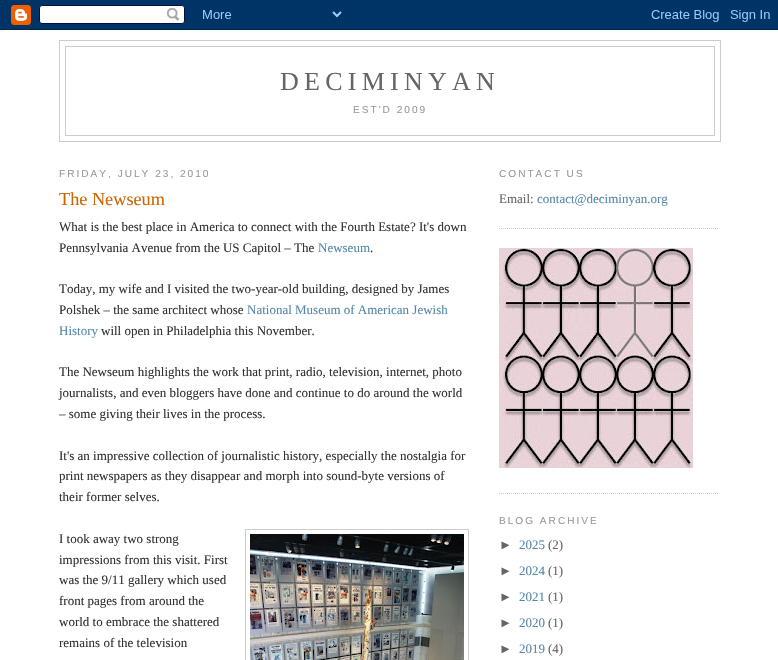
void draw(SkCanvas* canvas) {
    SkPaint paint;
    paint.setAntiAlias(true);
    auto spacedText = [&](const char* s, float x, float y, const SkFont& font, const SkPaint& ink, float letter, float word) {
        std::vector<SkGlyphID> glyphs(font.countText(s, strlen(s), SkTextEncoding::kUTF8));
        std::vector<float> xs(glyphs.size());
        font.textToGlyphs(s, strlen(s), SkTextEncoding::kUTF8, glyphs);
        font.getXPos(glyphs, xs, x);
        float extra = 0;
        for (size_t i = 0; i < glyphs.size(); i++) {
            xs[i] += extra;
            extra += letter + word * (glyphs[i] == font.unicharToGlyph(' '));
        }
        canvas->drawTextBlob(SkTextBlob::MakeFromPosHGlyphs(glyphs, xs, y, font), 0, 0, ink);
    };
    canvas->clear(0xFFFFFFFF);
    canvas->drawImageRect(SkImages::DeferredFromEncodedData(SkData::MakeFromFileName("img1.png")), SkRect::MakeXYWH(0, 0, 778, 30), SkSamplingOptions());
    paint.setStyle(SkPaint::kStroke_Style);
    paint.setStrokeWidth(1);
    paint.setColor(0xFFCCCCCC);
    canvas->drawRect(SkRect::MakeXYWH(59.5f, 40.5f, 661, 101), paint);
    canvas->drawRect(SkRect::MakeXYWH(65.5f, 46.5f, 649, 89), paint);
    SkFont font1(fontMgr->matchFamilyStyle("Liberation Serif", SkFontStyle::Normal()), 26);
    font1.setSubpixel(true);
    paint.setStyle(SkPaint::kFill_Style);
    paint.setColor(0xFF666666);
    spacedText("DECIMINYAN", 280, 90, font1, paint, 5.25f, 0);
    SkFont font2(fontMgr->matchFamilyStyle("Liberation Sans", SkFontStyle::Normal()), 10.1f);
    font2.setSubpixel(true);
    paint.setColor(0xFF999999);
    spacedText("EST'D 2009", 353, 113, font2, paint, 2, 0);
    spacedText("FRIDAY, JULY 23, 2010", 59, 177, font2, paint, 2, 0);
    SkFont font3(fontMgr->matchFamilyStyle("Liberation Serif", SkFontStyle::Normal()), 18.25f);
    font3.setSubpixel(true);
    paint.setColor(0xFFCC6600);
    canvas->drawString("The Newseum", 59, 205, font3, paint);
    SkFont font4(fontMgr->matchFamilyStyle("Liberation Serif", SkFontStyle::Normal()), 13);
    font4.setSubpixel(true);
    paint.setColor(0xFF333333);
    canvas->drawString("What is the best place in America to connect with the Fourth Estate? It's down", 59, 231, font4, paint);
    canvas->drawString("Pennsylvania Avenue from the US Capitol – The", 59, 252, font4, paint);
    paint.setColor(0xFF5588AA);
    canvas->drawString("Newseum", 318, 252, font4, paint);
    paint.setColor(0xFF333333);
    canvas->drawString(".", 370, 252, font4, paint);
    canvas->drawString("Today, my wife and I visited the two-year-old building, designed by James", 59, 293, font4, paint);
    canvas->drawString("Polshek – the same architect whose", 59, 314, font4, paint);
    paint.setColor(0xFF5588AA);
    canvas->drawString("National Museum of American Jewish", 247, 314, font4, paint);
    canvas->drawString("History", 59, 335, font4, paint);
    paint.setColor(0xFF333333);
    canvas->drawString("will open in Philadelphia this November.", 101, 335, font4, paint);
    canvas->drawString("The Newseum highlights the work that print, radio, television, internet, photo", 59, 376, font4, paint);
    canvas->drawString("journalists, and even bloggers have done and continue to do around the world", 59, 397, font4, paint);
    canvas->drawString("– some giving their lives in the process.", 59, 418, font4, paint);
    canvas->drawString("It's an impressive collection of journalistic history, especially the nostalgia for", 59, 460, font4, paint);
    canvas->drawString("print newspapers as they disappear and morph into sound-byte versions of", 59, 480, font4, paint);
    canvas->drawString("their former selves.", 59, 501, font4, paint);
    canvas->drawString("I took away two strong", 59, 543, font4, paint);
    canvas->drawString("impressions from this visit. First", 59, 564, font4, paint);
    canvas->drawString("was the 9/11 gallery which used", 59, 584, font4, paint);
    canvas->drawString("front pages from around the", 59, 605, font4, paint);
    canvas->drawString("world to embrace the shattered", 59, 626, font4, paint);
    canvas->drawString("remains of the television", 59, 647, font4, paint);
    paint.setStyle(SkPaint::kStroke_Style);
    paint.setColor(0xFFCCCCCC);
    canvas->drawRect(SkRect::MakeXYWH(245.5f, 529.5f, 223, 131), paint);
    canvas->drawImageRect(SkImages::DeferredFromEncodedData(SkData::MakeFromFileName("img2.png")), SkRect::MakeXYWH(250, 534, 214, 126), SkSamplingOptions());
    paint.setPathEffect(SkDashPathEffect::Make({{1, 1}}, 0));
    canvas->drawPath(SkPathBuilder().moveTo(499, 228.5f).lineTo(719, 228.5f).detach(), paint);
    paint.setPathEffect(nullptr);
    paint.setStyle(SkPaint::kFill_Style);
    paint.setColor(0xFF999999);
    spacedText("CONTACT US", 499, 177, font2, paint, 2, 0);
    paint.setColor(0xFF666666);
    canvas->drawString("Email:", 499, 203, font4, paint);
    paint.setColor(0xFF5588AA);
    canvas->drawString("contact@deciminyan.org", 537, 203, font4, paint);
    paint.setStyle(SkPaint::kStroke_Style);
    paint.setColor(0xFFCCCCCC);
    paint.setPathEffect(SkDashPathEffect::Make({{1, 1}}, 0));
    canvas->drawPath(SkPathBuilder().moveTo(499, 493.5f).lineTo(719, 493.5f).detach(), paint);
    paint.setPathEffect(nullptr);
    canvas->drawImageRect(SkImages::DeferredFromEncodedData(SkData::MakeFromFileName("img3.png")), SkRect::MakeXYWH(499, 248, 194, 220), SkSamplingOptions());
    paint.setStyle(SkPaint::kFill_Style);
    paint.setColor(0xFF999999);
    spacedText("BLOG ARCHIVE", 499, 524, font2, paint, 2, 0);
    SkFont font5(fontMgr->matchFamilyStyle("Liberation Sans", SkFontStyle::Normal()), 13);
    font5.setSubpixel(true);
    paint.setColor(0xFF666666);
    canvas->drawString("►", 499, 549, font5, paint);
    paint.setColor(0xFF5588AA);
    canvas->drawString("2025", 519, 549, font4, paint);
    paint.setColor(0xFF666666);
    canvas->drawString("(2)", 548, 549, font4, paint);
    canvas->drawString("►", 499, 575, font5, paint);
    paint.setColor(0xFF5588AA);
    canvas->drawString("2024", 519, 575, font4, paint);
    paint.setColor(0xFF666666);
    canvas->drawString("(1)", 548, 575, font4, paint);
    canvas->drawString("►", 499, 601, font5, paint);
    paint.setColor(0xFF5588AA);
    canvas->drawString("2021", 519, 601, font4, paint);
    paint.setColor(0xFF666666);
    canvas->drawString("(1)", 548, 601, font4, paint);
    canvas->drawString("►", 499, 627, font5, paint);
    paint.setColor(0xFF5588AA);
    canvas->drawString("2020", 519, 627, font4, paint);
    paint.setColor(0xFF666666);
    canvas->drawString("(1)", 548, 627, font4, paint);
    canvas->drawString("►", 499, 653, font5, paint);
    paint.setColor(0xFF5588AA);
    canvas->drawString("2019", 519, 653, font4, paint);
    paint.setColor(0xFF666666);
    canvas->drawString("(4)", 548, 653, font4, paint);
}
